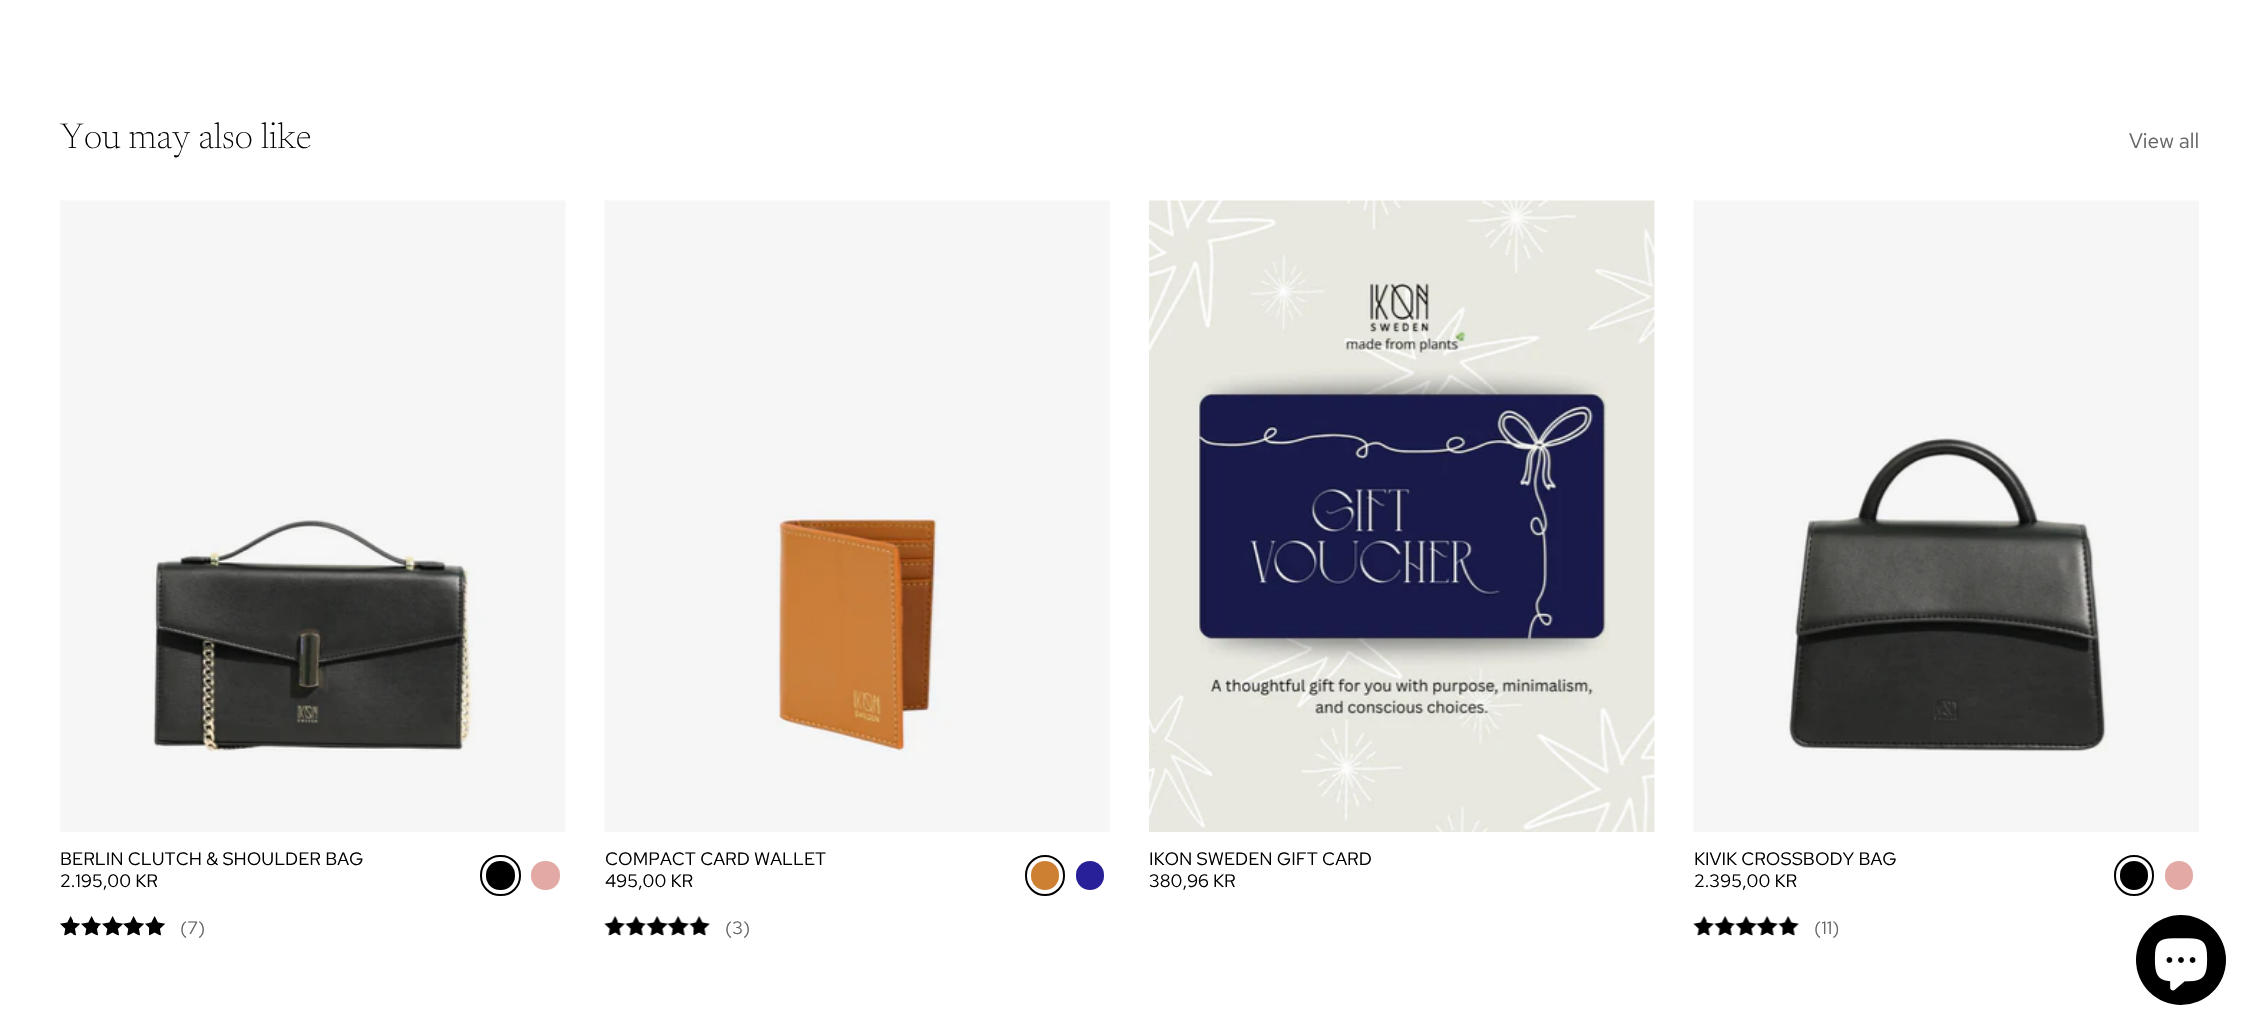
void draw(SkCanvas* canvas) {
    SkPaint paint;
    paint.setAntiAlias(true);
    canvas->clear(0xFFFFFFFF);
    SkFont font1(fontMgr->matchFamilyStyle("Newsreader", SkFontStyle(200, SkFontStyle::kNormal_Width, SkFontStyle::kUpright_Slant)), 36);
    font1.setSubpixel(true);
    paint.setColor(0xFF000000);
    canvas->drawString("You may also like", 60, 148, font1, paint);
    SkFont font2(fontMgr->matchFamilyStyle("Red Hat Text", SkFontStyle::Normal()), 21);
    font2.setSubpixel(true);
    paint.setColor(0xFF666666);
    canvas->drawString("View all", 2129, 148, font2, paint);
    canvas->drawImageRect(SkImages::DeferredFromEncodedData(SkData::MakeFromFileName("img1.png")), SkRect::MakeXYWH(60, 200, 506, 632), SkSamplingOptions());
    SkFont font3(fontMgr->matchFamilyStyle("Red Hat Text", SkFontStyle::Normal()), 18);
    font3.setSubpixel(true);
    paint.setColor(0xFF000000);
    canvas->drawString("BERLIN CLUTCH & SHOULDER BAG", 60, 865, font3, paint);
    canvas->drawString("2.195,00 KR", 60, 887, font3, paint);
    canvas->drawRoundRect(SkRect::MakeXYWH(486, 861, 29, 29), 14, 14, paint);
    paint.setStyle(SkPaint::kStroke_Style);
    paint.setStrokeWidth(2);
    canvas->drawRoundRect(SkRect::MakeXYWH(481, 856, 39, 39), 19, 19, paint);
    paint.setStyle(SkPaint::kFill_Style);
    paint.setColor(0xFFE3A9A4);
    canvas->drawRoundRect(SkRect::MakeXYWH(531, 861, 29, 29), 14, 14, paint);
    canvas->drawImageRect(SkImages::DeferredFromEncodedData(SkData::MakeFromFileName("img2.png")), SkRect::MakeXYWH(60, 916, 105, 20), SkSamplingOptions());
    canvas->drawImageRect(SkImages::DeferredFromEncodedData(SkData::MakeFromFileName("img3.png")), SkRect::MakeXYWH(60, 916, 105, 20), SkSamplingOptions());
    paint.setColor(0xFF666666);
    canvas->drawString("(7)", 180, 934, font3, paint);
    canvas->drawImageRect(SkImages::DeferredFromEncodedData(SkData::MakeFromFileName("img4.png")), SkRect::MakeXYWH(604, 200, 506, 632), SkSamplingOptions());
    paint.setColor(0xFF000000);
    canvas->drawString("COMPACT CARD WALLET", 605, 865, font3, paint);
    canvas->drawString("495,00 KR", 605, 887, font3, paint);
    paint.setColor(0xFFCD7F32);
    canvas->drawRoundRect(SkRect::MakeXYWH(1031, 861, 28, 29), 14, 14, paint);
    paint.setStyle(SkPaint::kStroke_Style);
    paint.setColor(0xFF000000);
    canvas->drawRoundRect(SkRect::MakeXYWH(1026, 856, 38, 39), 19, 19, paint);
    paint.setStyle(SkPaint::kFill_Style);
    paint.setColor(0xFF282099);
    canvas->drawRoundRect(SkRect::MakeXYWH(1076, 861, 28, 29), 14, 14, paint);
    canvas->drawImageRect(SkImages::DeferredFromEncodedData(SkData::MakeFromFileName("img5.png")), SkRect::MakeXYWH(604, 916, 106, 20), SkSamplingOptions());
    canvas->drawImageRect(SkImages::DeferredFromEncodedData(SkData::MakeFromFileName("img6.png")), SkRect::MakeXYWH(604, 916, 106, 20), SkSamplingOptions());
    paint.setColor(0xFF666666);
    canvas->drawString("(3)", 725, 934, font3, paint);
    canvas->drawImageRect(SkImages::DeferredFromEncodedData(SkData::MakeFromFileName("img7.png")), SkRect::MakeXYWH(1149, 200, 506, 632), SkSamplingOptions());
    paint.setColor(0xFF000000);
    canvas->drawString("IKON SWEDEN GIFT CARD", 1149, 865, font3, paint);
    canvas->drawString("380,96 KR", 1149, 887, font3, paint);
    canvas->drawImageRect(SkImages::DeferredFromEncodedData(SkData::MakeFromFileName("img8.png")), SkRect::MakeXYWH(1693, 200, 506, 632), SkSamplingOptions());
    canvas->drawString("KIVIK CROSSBODY BAG", 1694, 865, font3, paint);
    canvas->drawString("2.395,00 KR", 1694, 887, font3, paint);
    canvas->drawRoundRect(SkRect::MakeXYWH(2120, 861, 28, 29), 14, 14, paint);
    paint.setStyle(SkPaint::kStroke_Style);
    canvas->drawRoundRect(SkRect::MakeXYWH(2115, 856, 38, 39), 19, 19, paint);
    paint.setStyle(SkPaint::kFill_Style);
    paint.setColor(0xFFE3A9A4);
    canvas->drawRoundRect(SkRect::MakeXYWH(2165, 861, 28, 29), 14, 14, paint);
    canvas->drawImageRect(SkImages::DeferredFromEncodedData(SkData::MakeFromFileName("img5.png")), SkRect::MakeXYWH(1693, 916, 106, 20), SkSamplingOptions());
    canvas->drawImageRect(SkImages::DeferredFromEncodedData(SkData::MakeFromFileName("img6.png")), SkRect::MakeXYWH(1693, 916, 106, 20), SkSamplingOptions());
    paint.setColor(0xFF666666);
    canvas->drawString("(11)", 1814, 934, font3, paint);
    paint.setColor(0xFF000000);
    canvas->drawCircle(2181, 960, 45, paint);
    canvas->drawImageRect(SkImages::DeferredFromEncodedData(SkData::MakeFromFileName("img9.png")), SkRect::MakeXYWH(2154, 938, 54, 53), SkSamplingOptions());
}
